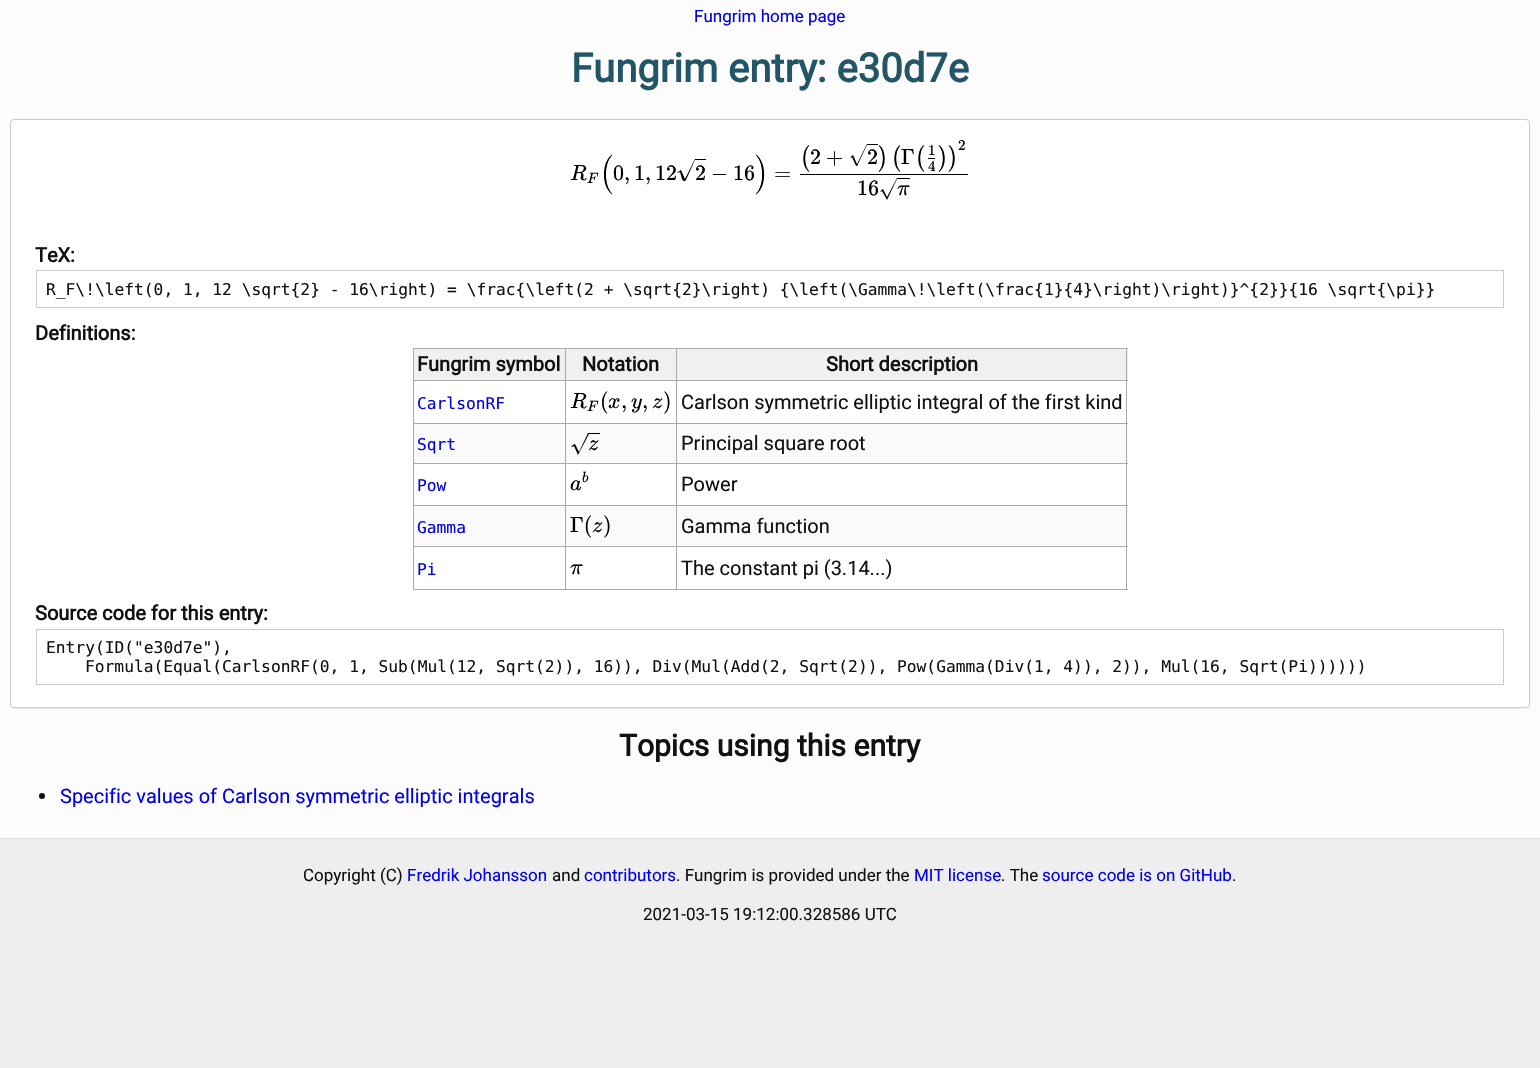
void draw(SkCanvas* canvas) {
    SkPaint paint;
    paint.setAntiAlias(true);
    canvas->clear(0xFFEEEEEE);
    paint.setColor(0xFFFCFCFC);
    canvas->drawRect(SkRect::MakeXYWH(0, 0, 1540, 838), paint);
    SkFont font1(fontMgr->matchFamilyStyle("Roboto", SkFontStyle::Normal()), 17);
    font1.setSubpixel(true);
    paint.setColor(0xFF0000EE);
    canvas->drawString("Fungrim home page", 694, 22, font1, paint);
    SkFont font2(fontMgr->matchFamilyStyle("Roboto", SkFontStyle::Bold()), 40);
    font2.setSubpixel(true);
    paint.setColor(0xFF225566);
    canvas->drawString("Fungrim entry: e30d7e", 571, 82, font2, paint);
    paint.setColor(0xFFEEEEEE);
    paint.setMaskFilter(SkMaskFilter::MakeBlur(kNormal_SkBlurStyle, 0.5f));
    canvas->drawRoundRect(SkRect::MakeXYWH(10, 120, 1520, 589), 4, 4, paint);
    paint.setMaskFilter(nullptr);
    paint.setColor(0xFFFFFFFF);
    canvas->drawRoundRect(SkRect::MakeXYWH(10.5f, 119.5f, 1519, 588), 3.5f, 3.5f, paint);
    paint.setStyle(SkPaint::kStroke_Style);
    paint.setStrokeWidth(1);
    paint.setColor(0xFFCCCCCC);
    canvas->drawRoundRect(SkRect::MakeXYWH(10.5f, 119.5f, 1519, 588), 3.5f, 3.5f, paint);
    SkFont font3(fontMgr->matchFamilyStyle("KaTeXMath", SkFontStyle::Italic()), 22);
    font3.setSubpixel(true);
    paint.setStyle(SkPaint::kFill_Style);
    paint.setColor(0xFF000000);
    canvas->drawString("R", 570, 180, font3, paint);
    SkFont font4(fontMgr->matchFamilyStyle("KaTeXMath", SkFontStyle::Italic()), 15);
    font4.setSubpixel(true);
    canvas->drawString("F", 587, 183, font4, paint);
    SkFont font5(fontMgr->matchFamilyStyle("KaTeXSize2", SkFontStyle::Normal()), 22);
    font5.setSubpixel(true);
    canvas->drawString("(", 600, 180, font5, paint);
    SkFont font6(fontMgr->matchFamilyStyle("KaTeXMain", SkFontStyle::Normal()), 22);
    font6.setSubpixel(true);
    canvas->drawString("0,", 613, 180, font6, paint);
    canvas->drawString("1,", 634, 180, font6, paint);
    canvas->drawString("12", 655, 180, font6, paint);
    canvas->save();
    canvas->clipRect(SkRect::MakeXYWH(676, 158, 30, 23));
    canvas->drawPath(SkPathBuilder().moveTo(678, 173).cubicTo(676, 173, 681, 170, 681, 170).lineTo(685, 179).lineTo(695, 159).lineTo(1529, 159).lineTo(1529, 160).lineTo(695, 160).lineTo(686, 180).cubicTo(684, 182, 683, 181, 682, 179).lineTo(680, 172).close().detach(), paint);
    canvas->restore();
    canvas->drawString("2", 695, 180, font6, paint);
    canvas->drawString("−", 711, 180, font6, paint);
    canvas->drawString("16", 733, 180, font6, paint);
    canvas->drawString(")", 755, 180, font5, paint);
    canvas->drawString("=", 774, 180, font6, paint);
    SkFont font7(fontMgr->matchFamilyStyle("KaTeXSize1", SkFontStyle::Normal()), 22);
    font7.setSubpixel(true);
    canvas->drawString("(", 800, 164, font7, paint);
    canvas->drawString("2", 810, 164, font6, paint);
    canvas->drawString("+", 826, 164, font6, paint);
    canvas->save();
    canvas->clipRect(SkRect::MakeXYWH(849, 143, 29, 23));
    canvas->drawPath(SkPathBuilder().moveTo(851, 158).cubicTo(849, 158, 853, 155, 853, 155).lineTo(857, 164).lineTo(867, 144).lineTo(1529, 144).lineTo(1529, 145).lineTo(867, 145).lineTo(858, 164).cubicTo(857, 167, 857, 167, 855, 164).lineTo(852, 157).close().detach(), paint);
    canvas->restore();
    canvas->drawString("2", 867, 164, font6, paint);
    canvas->drawString(")", 878, 164, font7, paint);
    canvas->drawString("(", 891, 164, font7, paint);
    canvas->drawString("Γ", 901, 164, font6, paint);
    canvas->drawString("(", 915, 164, font7, paint);
    SkFont font8(fontMgr->matchFamilyStyle("KaTeXMain", SkFontStyle::Normal()), 15);
    font8.setSubpixel(true);
    canvas->drawString("1", 928, 155, font8, paint);
    canvas->drawRect(SkRect::MakeXYWH(928, 158, 7, 1), paint);
    canvas->drawString("4", 928, 171, font8, paint);
    canvas->drawString("))", 938, 164, font7, paint);
    canvas->drawString("2", 958, 150, font8, paint);
    canvas->drawRect(SkRect::MakeXYWH(800, 174, 168, 1), paint);
    canvas->drawString("16", 857, 195, font6, paint);
    canvas->save();
    canvas->clipRect(SkRect::MakeXYWH(879, 176, 31, 24));
    canvas->drawPath(SkPathBuilder().moveTo(881, 192).cubicTo(879, 192, 883, 189, 883, 189).lineTo(887, 197).lineTo(897, 178).lineTo(1529, 178).lineTo(1529, 179).lineTo(897, 179).lineTo(887, 200).lineTo(882, 191).close().detach(), paint);
    canvas->restore();
    canvas->drawString("π", 897, 195, font3, paint);
    SkFont font9(fontMgr->matchFamilyStyle("Roboto", SkFontStyle::Bold()), 20);
    font9.setSubpixel(true);
    paint.setColor(0xFF111111);
    canvas->drawString("TeX:", 35, 262, font9, paint);
    paint.setStyle(SkPaint::kStroke_Style);
    paint.setColor(0xFFCCCCCC);
    canvas->drawRect(SkRect::MakeXYWH(36.5f, 270.5f, 1467, 37), paint);
    SkFont font10(fontMgr->matchFamilyStyle("DejaVu Sans Mono", SkFontStyle::Normal()), 16.25f);
    font10.setSubpixel(true);
    paint.setStyle(SkPaint::kFill_Style);
    paint.setColor(0xFF111111);
    canvas->drawString("R_F\\!\\left(0, 1, 12 \\sqrt{2} - 16\\right) = \\frac{\\left(2 + \\sqrt{2}\\right) {\\left(\\Gamma\\!\\left(\\frac{1}{4}\\right)\\right)}^{2}}{16 \\sqrt{\\pi}}", 46, 295, font10, paint);
    canvas->drawString("Definitions:", 35, 340, font9, paint);
    paint.setColor(0xFFAAAAAA);
    canvas->drawRect(SkRect::MakeXYWH(413, 348, 715, 1), paint);
    paint.setColor(0xFFF0F0F0);
    canvas->drawRect(SkRect::MakeXYWH(677, 349, 451, 31), paint);
    paint.setColor(0xFFFAFAFA);
    canvas->drawRect(SkRect::MakeXYWH(414, 424, 714, 39), paint);
    canvas->drawRect(SkRect::MakeXYWH(414, 506, 714, 42), paint);
    paint.setColor(0xFFAAAAAA);
    canvas->drawRect(SkRect::MakeXYWH(1126, 348, 1, 242), paint);
    canvas->drawRect(SkRect::MakeXYWH(413, 589, 715, 1), paint);
    canvas->drawRect(SkRect::MakeXYWH(413, 348, 1, 242), paint);
    paint.setColor(0xFFF0F0F0);
    canvas->drawRect(SkRect::MakeXYWH(414, 349, 151, 31), paint);
    paint.setColor(0xFF111111);
    canvas->drawString("Fungrim symbol", 417, 371, font9, paint);
    paint.setColor(0xFFF0F0F0);
    canvas->drawRect(SkRect::MakeXYWH(566, 349, 110, 31), paint);
    paint.setColor(0xFFAAAAAA);
    canvas->drawRect(SkRect::MakeXYWH(676, 380, 452, 1), paint);
    canvas->drawRect(SkRect::MakeXYWH(676, 423, 452, 1), paint);
    canvas->drawRect(SkRect::MakeXYWH(676, 463, 452, 1), paint);
    canvas->drawRect(SkRect::MakeXYWH(676, 505, 452, 1), paint);
    canvas->drawRect(SkRect::MakeXYWH(676, 546, 452, 1), paint);
    canvas->drawRect(SkRect::MakeXYWH(676, 546, 1, 44), paint);
    canvas->drawRect(SkRect::MakeXYWH(565, 546, 113, 1), paint);
    canvas->drawRect(SkRect::MakeXYWH(676, 505, 1, 43), paint);
    canvas->drawRect(SkRect::MakeXYWH(565, 505, 113, 1), paint);
    canvas->drawRect(SkRect::MakeXYWH(676, 463, 1, 43), paint);
    canvas->drawRect(SkRect::MakeXYWH(565, 463, 113, 1), paint);
    canvas->drawRect(SkRect::MakeXYWH(676, 423, 1, 41), paint);
    canvas->drawRect(SkRect::MakeXYWH(565, 423, 113, 1), paint);
    canvas->drawRect(SkRect::MakeXYWH(676, 380, 1, 44), paint);
    canvas->drawRect(SkRect::MakeXYWH(565, 380, 113, 1), paint);
    canvas->drawRect(SkRect::MakeXYWH(565, 546, 1, 44), paint);
    canvas->drawRect(SkRect::MakeXYWH(413, 546, 153, 1), paint);
    canvas->drawRect(SkRect::MakeXYWH(565, 505, 1, 43), paint);
    canvas->drawRect(SkRect::MakeXYWH(413, 505, 153, 1), paint);
    canvas->drawRect(SkRect::MakeXYWH(565, 463, 1, 43), paint);
    canvas->drawRect(SkRect::MakeXYWH(413, 463, 153, 1), paint);
    canvas->drawRect(SkRect::MakeXYWH(565, 423, 1, 41), paint);
    canvas->drawRect(SkRect::MakeXYWH(413, 423, 153, 1), paint);
    canvas->drawRect(SkRect::MakeXYWH(565, 380, 1, 44), paint);
    canvas->drawRect(SkRect::MakeXYWH(413, 380, 153, 1), paint);
    canvas->drawRect(SkRect::MakeXYWH(565, 348, 1, 33), paint);
    paint.setColor(0xFF111111);
    canvas->drawString("Notation", 582, 371, font9, paint);
    paint.setColor(0xFFAAAAAA);
    canvas->drawRect(SkRect::MakeXYWH(676, 348, 1, 33), paint);
    paint.setColor(0xFF111111);
    canvas->drawString("Short description", 826, 371, font9, paint);
    paint.setColor(0xFF0000EE);
    canvas->drawString("CarlsonRF", 417, 409, font10, paint);
    paint.setColor(0xFF000000);
    canvas->drawString("R", 570, 408, font3, paint);
    canvas->drawString("F", 587, 411, font4, paint);
    canvas->drawString("(", 600, 408, font6, paint);
    canvas->drawString("x", 608, 408, font3, paint);
    canvas->drawString(",", 621, 408, font6, paint);
    canvas->drawString("y", 631, 408, font3, paint);
    canvas->drawString(",", 642, 408, font6, paint);
    canvas->drawString("z", 652, 408, font3, paint);
    canvas->drawString(")", 663, 408, font6, paint);
    SkFont font11(fontMgr->matchFamilyStyle("Roboto", SkFontStyle::Normal()), 20);
    font11.setSubpixel(true);
    paint.setColor(0xFF111111);
    canvas->drawString("Carlson symmetric elliptic integral of the first kind", 681, 409, font11, paint);
    paint.setColor(0xFF0000EE);
    canvas->drawString("Sqrt", 417, 450, font10, paint);
    canvas->save();
    canvas->clipRect(SkRect::MakeXYWH(570, 431, 30, 24));
    paint.setColor(0xFF000000);
    canvas->drawPath(SkPathBuilder().moveTo(572, 447).cubicTo(570, 447, 574, 444, 575, 444).lineTo(579, 452).lineTo(588, 433).lineTo(1529, 433).lineTo(1529, 434).lineTo(589, 434).lineTo(578, 455).lineTo(574, 446).close().detach(), paint);
    canvas->restore();
    canvas->drawString("z", 588, 450, font3, paint);
    paint.setColor(0xFF111111);
    canvas->drawString("Principal square root", 681, 450, font11, paint);
    paint.setColor(0xFF0000EE);
    canvas->drawString("Pow", 417, 491, font10, paint);
    paint.setColor(0xFF000000);
    canvas->drawString("b", 582, 482, font4, paint);
    canvas->drawString("a", 570, 490, font3, paint);
    paint.setColor(0xFF111111);
    canvas->drawString("Power", 681, 491, font11, paint);
    paint.setColor(0xFF0000EE);
    canvas->drawString("Gamma", 417, 533, font10, paint);
    paint.setColor(0xFF000000);
    canvas->drawString("Γ(", 570, 532, font6, paint);
    canvas->drawString("z", 592, 532, font3, paint);
    canvas->drawString(")", 603, 532, font6, paint);
    paint.setColor(0xFF111111);
    canvas->drawString("Gamma function", 681, 533, font11, paint);
    paint.setColor(0xFF0000EE);
    canvas->drawString("Pi", 417, 575, font10, paint);
    paint.setColor(0xFF000000);
    canvas->drawString("π", 570, 574, font3, paint);
    paint.setColor(0xFF111111);
    canvas->drawString("The constant pi (3.14...)", 681, 575, font11, paint);
    canvas->drawString("Source code for this entry:", 35, 620, font9, paint);
    paint.setStyle(SkPaint::kStroke_Style);
    paint.setColor(0xFFCCCCCC);
    canvas->drawRect(SkRect::MakeXYWH(36.5f, 629.5f, 1467, 55), paint);
    paint.setStyle(SkPaint::kFill_Style);
    paint.setColor(0xFF111111);
    canvas->drawString("Entry(ID(\"e30d7e\"),", 46, 653, font10, paint);
    canvas->drawString("Formula(Equal(CarlsonRF(0, 1, Sub(Mul(12, Sqrt(2)), 16)), Div(Mul(Add(2, Sqrt(2)), Pow(Gamma(Div(1, 4)), 2)), Mul(16, Sqrt(Pi))))))", 85, 672, font10, paint);
    SkFont font12(fontMgr->matchFamilyStyle("Roboto", SkFontStyle::Bold()), 30);
    font12.setSubpixel(true);
    canvas->drawString("Topics using this entry", 619, 756, font12, paint);
    canvas->drawCircle(42, 796, 3, paint);
    paint.setColor(0xFF0000EE);
    canvas->drawString("Specific values of Carlson symmetric elliptic integrals", 60, 803, font11, paint);
    paint.setColor(0xFFDDDDDD);
    canvas->drawRect(SkRect::MakeXYWH(0, 838, 1540, 1), paint);
    paint.setColor(0xFF111111);
    canvas->drawString("Copyright (C)", 303, 881, font1, paint);
    paint.setColor(0xFF0000EE);
    canvas->drawString("Fredrik Johansson", 407, 881, font1, paint);
    paint.setColor(0xFF111111);
    canvas->drawString("and", 552, 881, font1, paint);
    paint.setColor(0xFF0000EE);
    canvas->drawString("contributors", 584, 881, font1, paint);
    paint.setColor(0xFF111111);
    canvas->drawString(". Fungrim is provided under the", 676, 881, font1, paint);
    paint.setColor(0xFF0000EE);
    canvas->drawString("MIT license", 914, 881, font1, paint);
    paint.setColor(0xFF111111);
    canvas->drawString(". The", 1001, 881, font1, paint);
    paint.setColor(0xFF0000EE);
    canvas->drawString("source code is on GitHub", 1042, 881, font1, paint);
    paint.setColor(0xFF111111);
    canvas->drawString(".", 1232, 881, font1, paint);
    canvas->drawString("2021-03-15 19:12:00.328586 UTC", 643, 920, font1, paint);
}
